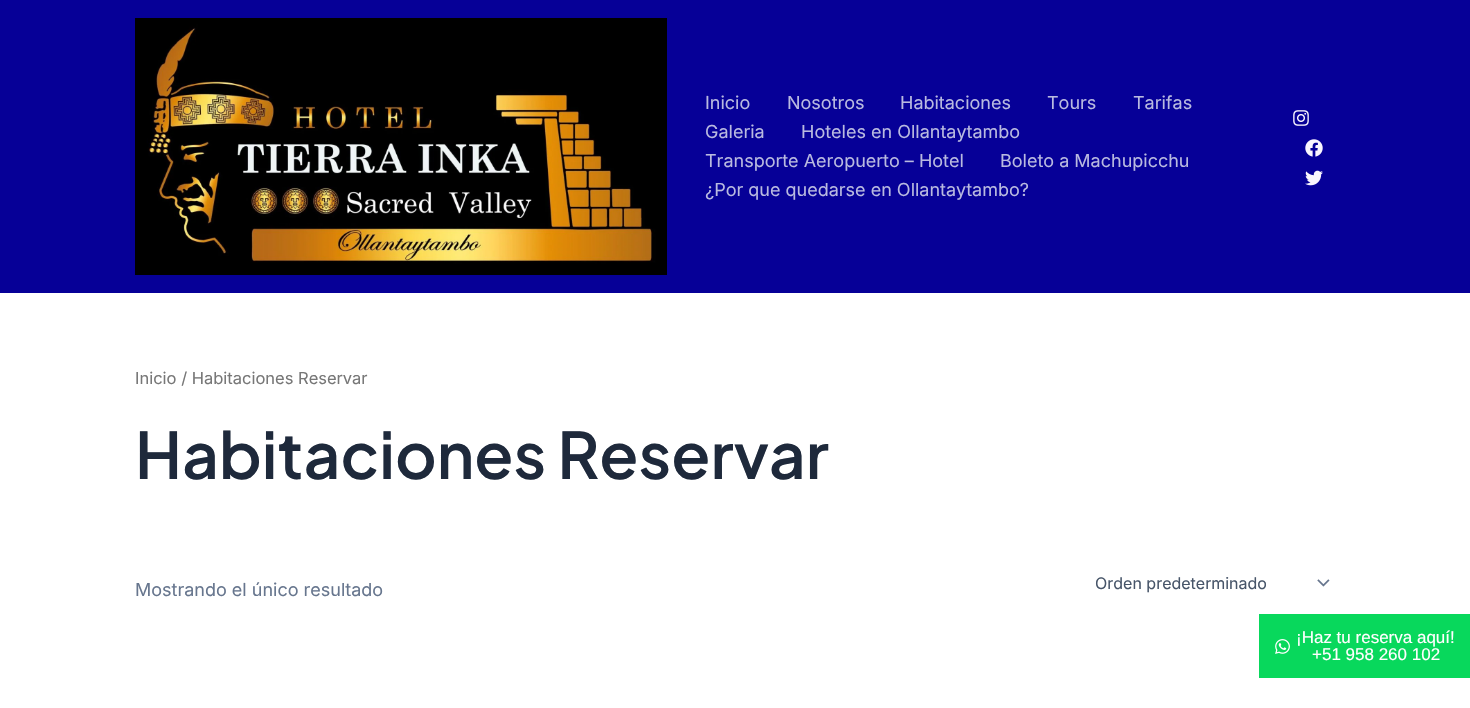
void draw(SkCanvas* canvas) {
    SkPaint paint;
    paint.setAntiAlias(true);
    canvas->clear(0xFFFFFFFF);
    paint.setColor(0xFF060097);
    canvas->drawRect(SkRect::MakeXYWH(0, 0, 1470, 293), paint);
    canvas->drawImageRect(SkImages::DeferredFromEncodedData(SkData::MakeFromFileName("img1.png")), SkRect::MakeXYWH(135, 18, 532, 257), SkSamplingOptions());
    SkFont font1(fontMgr->matchFamilyStyle("Inter", SkFontStyle::Normal()), 18);
    font1.setSubpixel(true);
    paint.setColor(0xFFB9BAE0);
    canvas->drawString("Inicio", 705, 109, font1, paint);
    canvas->drawString("Nosotros", 787, 109, font1, paint);
    canvas->drawString("Habitaciones", 900, 109, font1, paint);
    canvas->drawString("Tours", 1047, 109, font1, paint);
    canvas->drawString("Tarifas", 1133, 109, font1, paint);
    canvas->drawString("Galeria", 705, 138, font1, paint);
    canvas->drawString("Hoteles en Ollantaytambo", 801, 138, font1, paint);
    canvas->drawString("Transporte Aeropuerto – Hotel", 705, 167, font1, paint);
    canvas->drawString("Boleto a Machupicchu", 1000, 167, font1, paint);
    canvas->drawString("¿Por que quedarse en Ollantaytambo?", 705, 196, font1, paint);
    canvas->drawImageRect(SkImages::DeferredFromEncodedData(SkData::MakeFromFileName("img2.png")), SkRect::MakeXYWH(1293, 110, 16, 16), SkSamplingOptions());
    canvas->drawImageRect(SkImages::DeferredFromEncodedData(SkData::MakeFromFileName("img3.png")), SkRect::MakeXYWH(1305, 139, 18, 18), SkSamplingOptions());
    canvas->drawImageRect(SkImages::DeferredFromEncodedData(SkData::MakeFromFileName("img4.png")), SkRect::MakeXYWH(1305, 170, 18, 16), SkSamplingOptions());
    SkFont font2(fontMgr->matchFamilyStyle("Inter", SkFontStyle::Normal()), 16.5f);
    font2.setSubpixel(true);
    paint.setColor(0xFF777777);
    canvas->drawString("Inicio / Habitaciones Reservar", 135, 384, font2, paint);
    SkFont font3(fontMgr->matchFamilyStyle("Plus Jakarta Sans", SkFontStyle(600, SkFontStyle::kNormal_Width, SkFontStyle::kUpright_Slant)), 64);
    font3.setSubpixel(true);
    paint.setColor(0xFF1E293B);
    canvas->drawString("Habitaciones Reservar", 135, 479, font3, paint);
    paint.setColor(0xFF67768E);
    canvas->drawString("Mostrando el único resultado", 135, 596, font1, paint);
    canvas->drawImageRect(SkImages::DeferredFromEncodedData(SkData::MakeFromFileName("img5.png")), SkRect::MakeXYWH(1317, 579, 13, 8), SkSamplingOptions());
    SkFont font4(fontMgr->matchFamilyStyle("Inter", SkFontStyle::Normal()), 16);
    font4.setSubpixel(true);
    paint.setColor(0xFF475569);
    canvas->drawString("Orden predeterminado", 1095, 589, font4, paint);
    paint.setColor(0xFF08D85C);
    canvas->drawRect(SkRect::MakeXYWH(1259, 614, 211, 64), paint);
    canvas->drawImageRect(SkImages::DeferredFromEncodedData(SkData::MakeFromFileName("img6.png")), SkRect::MakeXYWH(1275, 639, 15, 15), SkSamplingOptions());
    SkFont font5(fontMgr->matchFamilyStyle("Liberation Sans", SkFontStyle::Normal()), 17);
    font5.setSubpixel(true);
    paint.setColor(0xFFFFFFFF);
    canvas->drawString("¡Haz tu reserva aquí!", 1296, 643, font5, paint);
    canvas->drawString("+51 958 260 102", 1312, 660, font5, paint);
}
